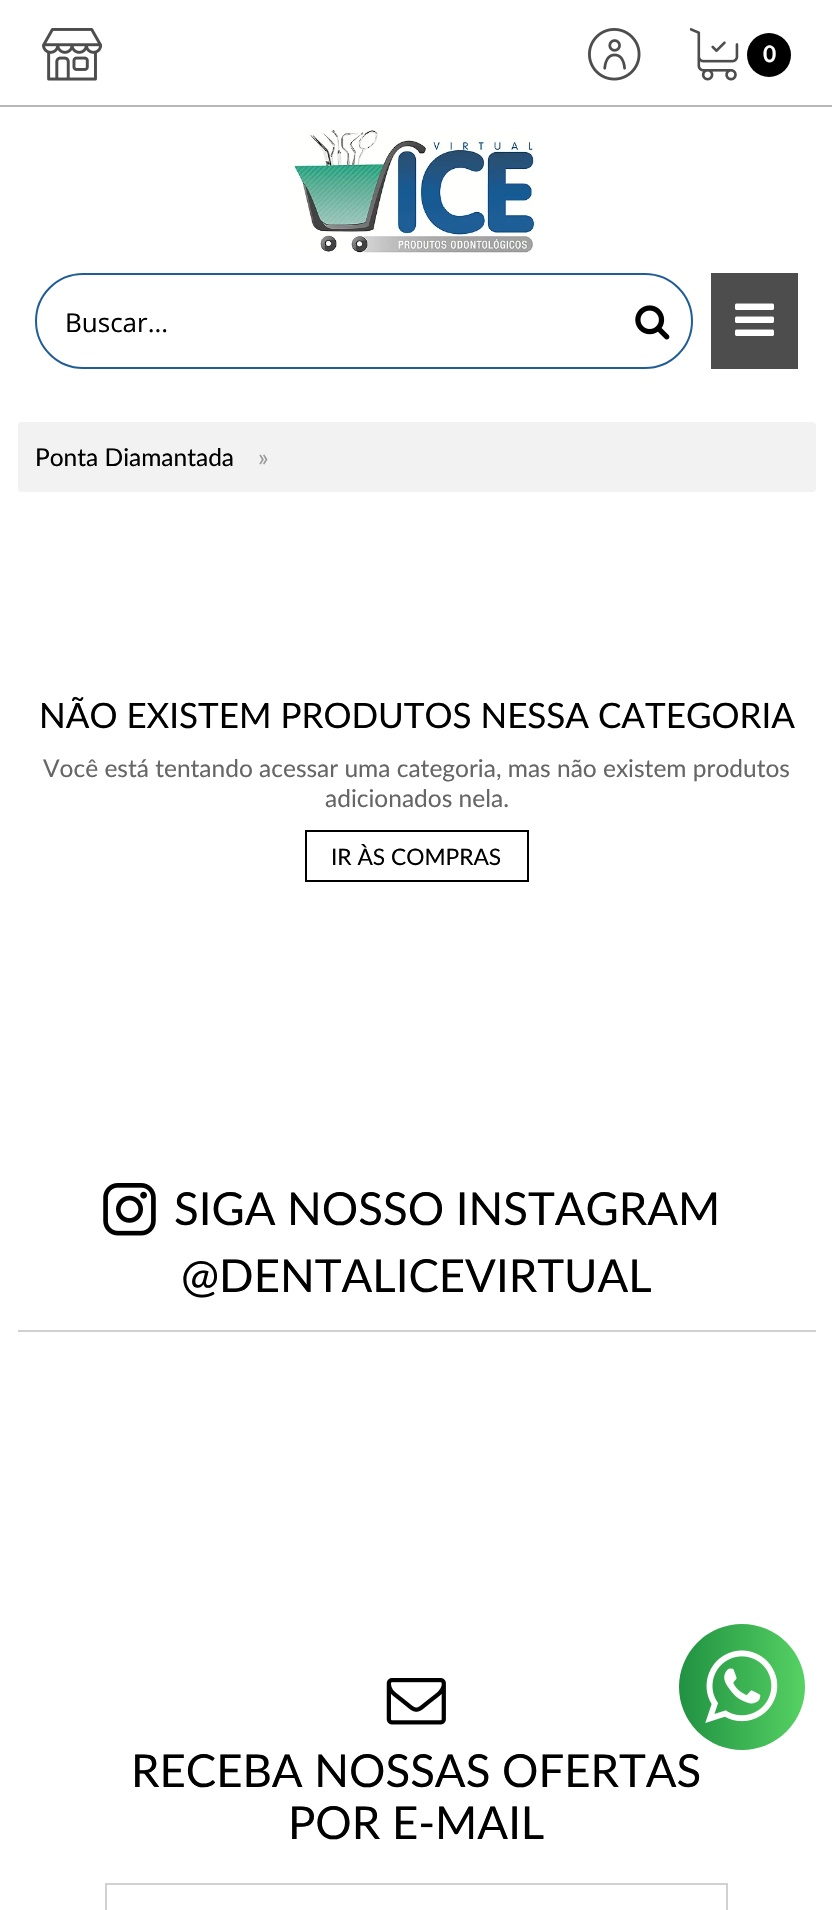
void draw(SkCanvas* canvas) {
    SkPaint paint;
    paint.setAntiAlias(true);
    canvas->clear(0xFFFFFFFF);
    paint.setColor(0xFFB8B8B8);
    canvas->drawRect(SkRect::MakeXYWH(0, 105, 832, 2), paint);
    canvas->drawImageRect(SkImages::DeferredFromEncodedData(SkData::MakeFromFileName("img1.png")), SkRect::MakeXYWH(42, 28, 60, 53), SkSamplingOptions());
    canvas->drawImageRect(SkImages::DeferredFromEncodedData(SkData::MakeFromFileName("img2.png")), SkRect::MakeXYWH(588, 28, 53, 53), SkSamplingOptions());
    canvas->drawImageRect(SkImages::DeferredFromEncodedData(SkData::MakeFromFileName("img3.png")), SkRect::MakeXYWH(690, 28, 49, 53), SkSamplingOptions());
    paint.setColor(0xFF000000);
    canvas->drawCircle(769, 55, 22, paint);
    SkFont font1(fontMgr->matchFamilyStyle("Lato", SkFontStyle::Bold()), 22.75f);
    font1.setSubpixel(true);
    paint.setColor(0xFFFFFFFF);
    canvas->drawString("0", 763, 62, font1, paint);
    canvas->drawImageRect(SkImages::DeferredFromEncodedData(SkData::MakeFromFileName("img4.png")), SkRect::MakeXYWH(292, 130, 244, 123), SkSamplingOptions());
    paint.setStyle(SkPaint::kStroke_Style);
    paint.setStrokeWidth(2);
    paint.setColor(0xFF205D95);
    canvas->drawRoundRect(SkRect::MakeXYWH(36, 274, 656, 94), 47, 47, paint);
    SkFont font2(fontMgr->matchFamilyStyle("Open Sans", SkFontStyle::Normal()), 26);
    font2.setSubpixel(true);
    paint.setStyle(SkPaint::kFill_Style);
    paint.setColor(0xFF000000);
    canvas->drawString("Buscar...", 65, 332, font2, paint);
    canvas->drawImageRect(SkImages::DeferredFromEncodedData(SkData::MakeFromFileName("img5.png")), SkRect::MakeXYWH(635, 305, 35, 35), SkSamplingOptions());
    paint.setColor(0xFF4D4D4D);
    canvas->drawRect(SkRect::MakeXYWH(711, 273, 87, 96), paint);
    canvas->drawImageRect(SkImages::DeferredFromEncodedData(SkData::MakeFromFileName("img6.png")), SkRect::MakeXYWH(735, 303, 39, 33), SkSamplingOptions());
    paint.setColor(0xFFF2F2F2);
    canvas->drawRoundRect(SkRect::MakeXYWH(18, 422, 798, 70), 4, 4, paint);
    SkFont font3(fontMgr->matchFamilyStyle("Lato", SkFontStyle::Normal()), 24.5f);
    font3.setSubpixel(true);
    paint.setColor(0xFF000000);
    canvas->drawString("Ponta Diamantada", 35, 466, font3, paint);
    paint.setColor(0xFF999999);
    canvas->drawString("»", 258, 466, font3, paint);
    SkFont font4(fontMgr->matchFamilyStyle("Lato", SkFontStyle::Normal()), 35);
    font4.setSubpixel(true);
    paint.setColor(0xFF000000);
    canvas->drawString("NÃO EXISTEM PRODUTOS NESSA CATEGORIA", 39, 728, font4, paint);
    paint.setColor(0xFF666666);
    canvas->drawString("Você está tentando acessar uma categoria, mas não existem produtos", 43, 777, font3, paint);
    canvas->drawString("adicionados nela.", 325, 807, font3, paint);
    paint.setStyle(SkPaint::kStroke_Style);
    paint.setColor(0xFF000000);
    canvas->drawRect(SkRect::MakeXYWH(306, 831, 222, 50), paint);
    SkFont font5(fontMgr->matchFamilyStyle("Lato", SkFontStyle::Normal()), 22.75f);
    font5.setSubpixel(true);
    paint.setStyle(SkPaint::kFill_Style);
    canvas->drawString("IR ÀS COMPRAS", 331, 865, font5, paint);
    canvas->drawImageRect(SkImages::DeferredFromEncodedData(SkData::MakeFromFileName("img7.png")), SkRect::MakeXYWH(103, 1183, 53, 53), SkSamplingOptions());
    SkFont font6(fontMgr->matchFamilyStyle("Lato", SkFontStyle::Normal()), 45.5f);
    font6.setSubpixel(true);
    canvas->drawString("SIGA NOSSO INSTAGRAM", 174, 1225, font6, paint);
    canvas->drawString("@DENTALICEVIRTUAL", 181, 1292, font6, paint);
    paint.setColor(0xFFD0D0D0);
    canvas->drawRect(SkRect::MakeXYWH(18, 1330, 798, 2), paint);
    canvas->drawImageRect(SkImages::DeferredFromEncodedData(SkData::MakeFromFileName("img8.png")), SkRect::MakeXYWH(386, 1678, 60, 47), SkSamplingOptions());
    paint.setColor(0xFF000000);
    canvas->drawString("RECEBA NOSSAS OFERTAS", 131, 1787, font6, paint);
    canvas->drawString("POR E-MAIL", 288, 1839, font6, paint);
    paint.setStyle(SkPaint::kStroke_Style);
    paint.setColor(0xFFD1D1D1);
    canvas->drawRect(SkRect::MakeXYWH(106, 1884, 621, 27), paint);
    paint.setStyle(SkPaint::kFill_Style);
    {
        const SkColor colors[] = {0xFF209142, 0xFF56D263};
        const float stops[] = {0, 1};
        const SkPoint ends[] = {{679, 1687}, {805, 1687}};
        paint.setShader(SkGradientShader::MakeLinear(ends, colors, stops, 2, SkTileMode::kClamp));
        paint.setAlpha(255);
    }
    canvas->drawCircle(742, 1687, 63, paint);
    canvas->drawImageRect(SkImages::DeferredFromEncodedData(SkData::MakeFromFileName("img9.png")), SkRect::MakeXYWH(705, 1650, 73, 73), SkSamplingOptions());
}
